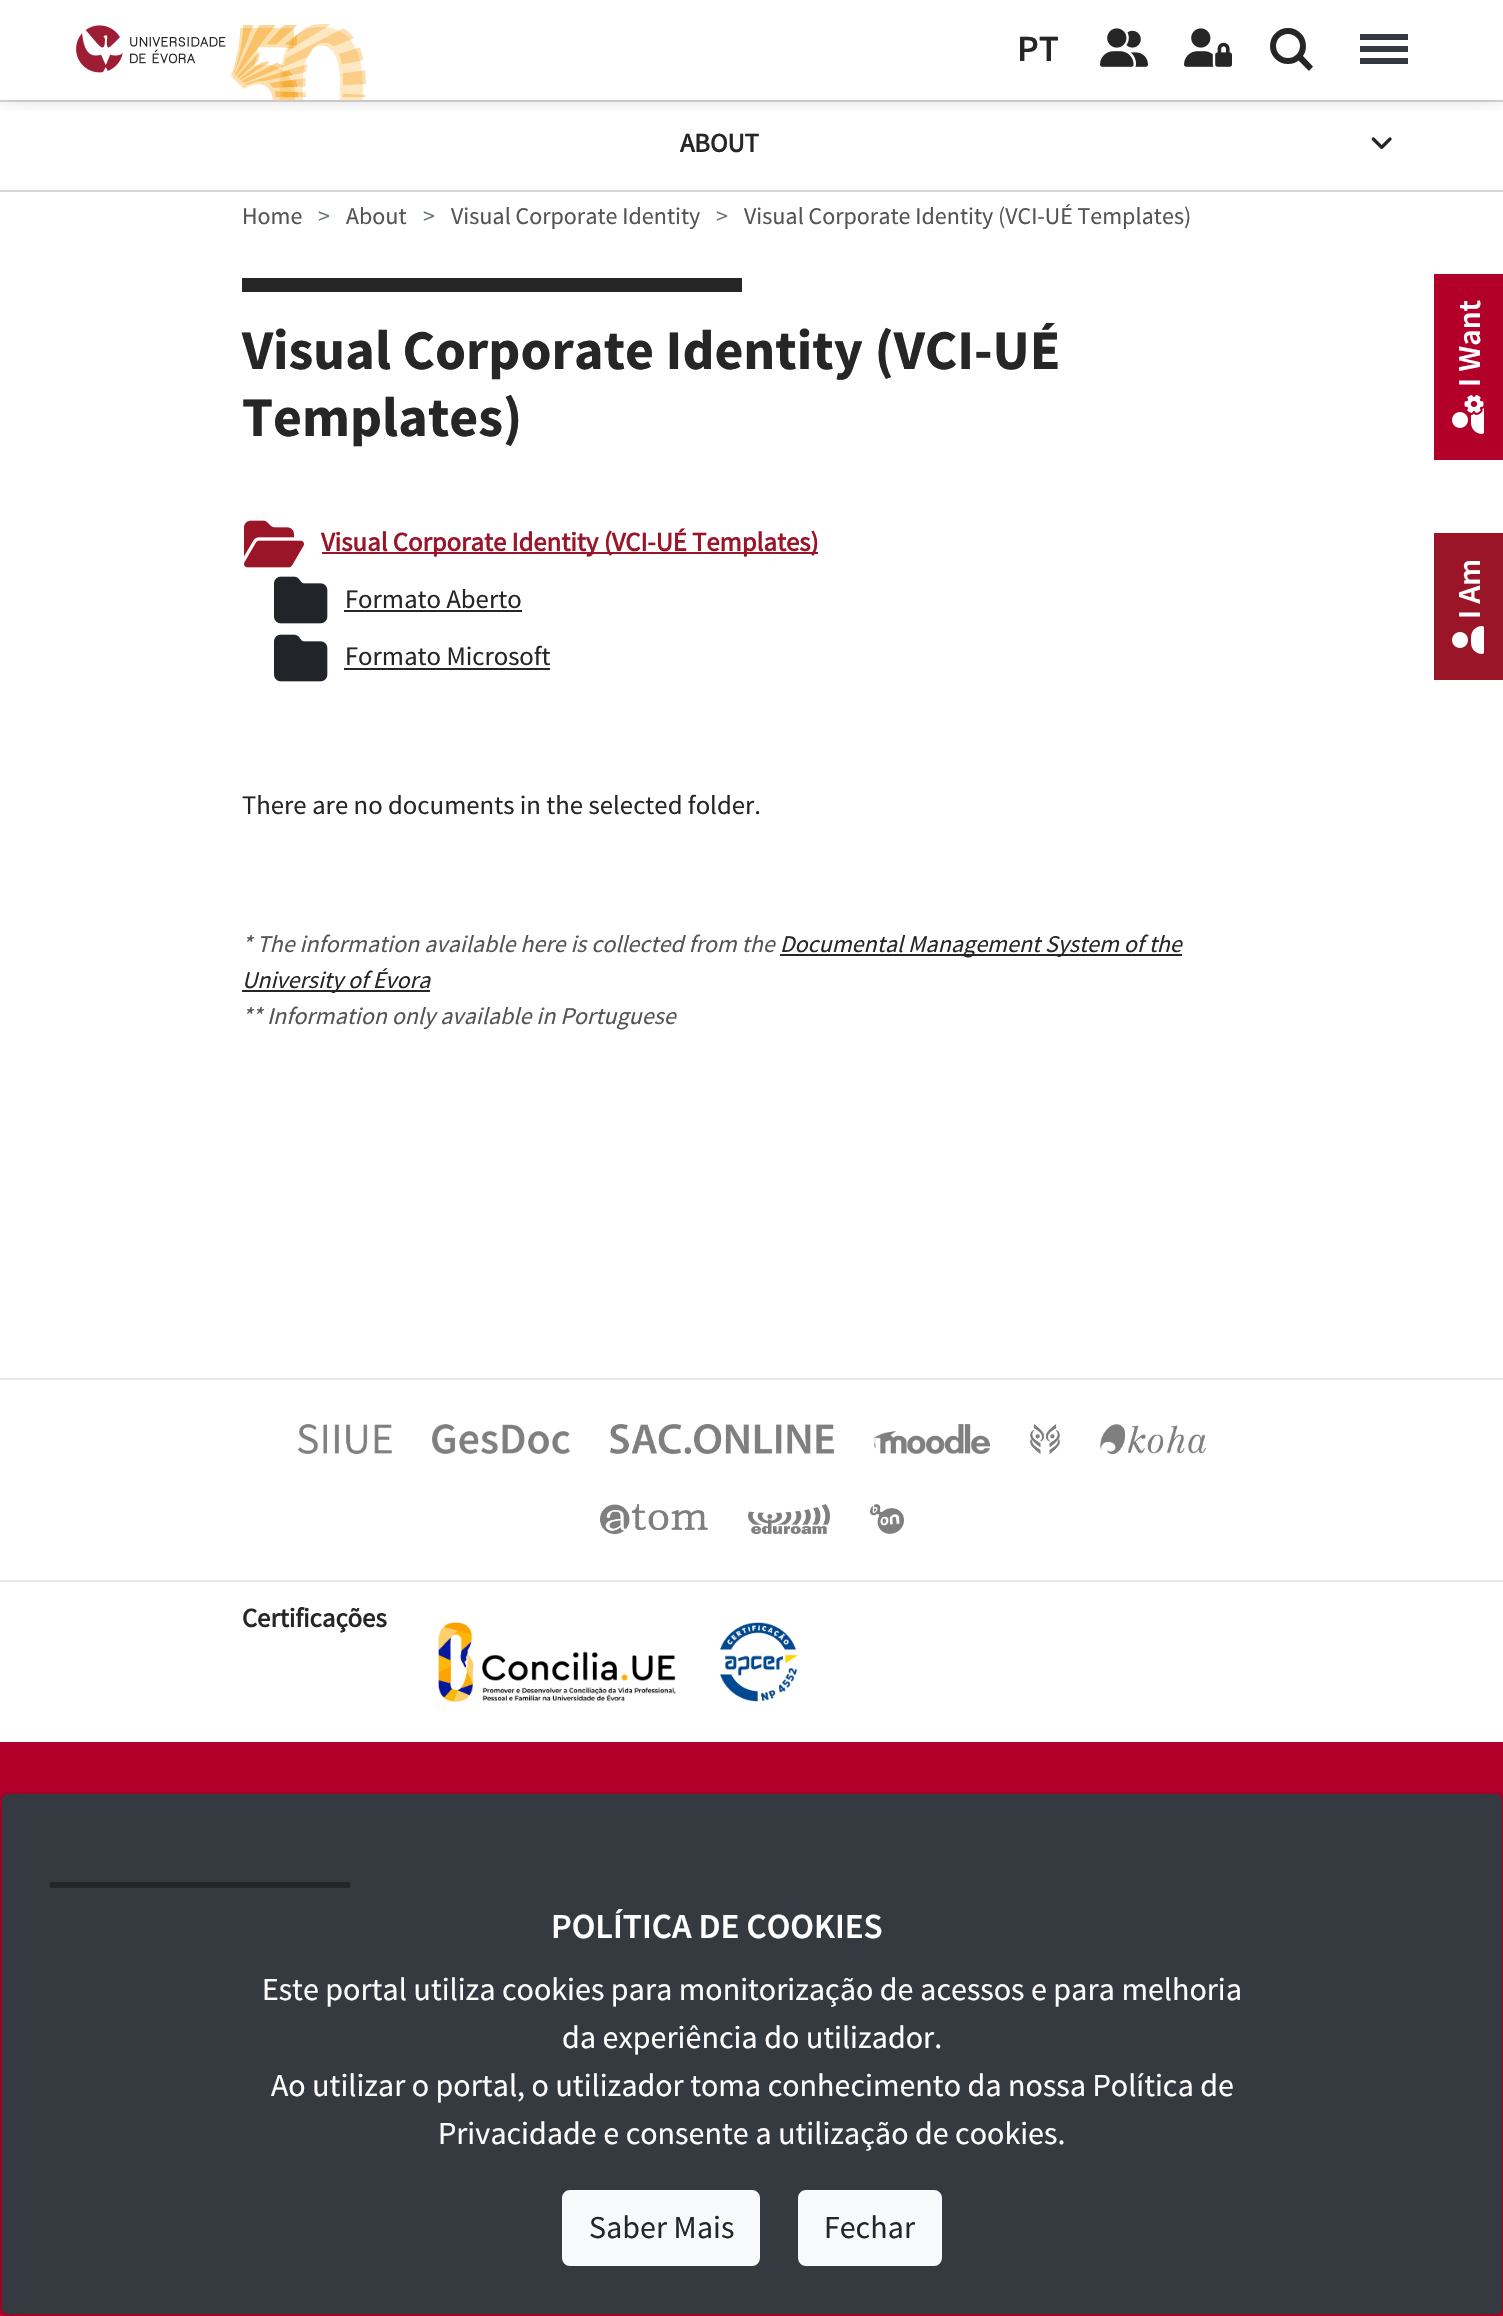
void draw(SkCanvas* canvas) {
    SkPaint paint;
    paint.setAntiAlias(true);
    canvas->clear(0xFFFFFFFF);
    paint.setColor(0xFFD8D8D8);
    canvas->drawRect(SkRect::MakeXYWH(0, 100, 1503, 2), paint);
    canvas->save();
    canvas->clipRect(SkRect::MakeXYWH(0, 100, 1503, 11));
    paint.setColor(0xFF333333);
    paint.setMaskFilter(SkMaskFilter::MakeBlur(kNormal_SkBlurStyle, 15));
    canvas->drawRect(SkRect::MakeXYWH(0, -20, 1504, 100), paint);
    paint.setMaskFilter(nullptr);
    canvas->restore();
    canvas->drawImageRect(SkImages::DeferredFromEncodedData(SkData::MakeFromFileName("img1.png")), SkRect::MakeXYWH(76, 24, 290, 76), SkSamplingOptions());
    SkFont font1(fontMgr->matchFamilyStyle("Source Sans Pro", SkFontStyle(600, SkFontStyle::kNormal_Width, SkFontStyle::kUpright_Slant)), 37);
    font1.setSubpixel(true);
    paint.setColor(0xFF262626);
    canvas->drawString("PT", 1017, 61, font1, paint);
    canvas->drawImageRect(SkImages::DeferredFromEncodedData(SkData::MakeFromFileName("img2.png")), SkRect::MakeXYWH(1100, 28, 48, 39), SkSamplingOptions());
    canvas->drawImageRect(SkImages::DeferredFromEncodedData(SkData::MakeFromFileName("img3.png")), SkRect::MakeXYWH(1184, 28, 48, 39), SkSamplingOptions());
    paint.setStyle(SkPaint::kStroke_Style);
    paint.setStrokeWidth(6);
    canvas->drawCircle(1288, 46, 15, paint);
    paint.setStyle(SkPaint::kFill_Style);
    canvas->drawPath(SkPathBuilder().moveTo(1302, 55).lineTo(1313, 66.5f).lineTo(1309, 71).lineTo(1297.5f, 59.5f).close().detach(), paint);
    paint.setColor(0xFF343A40);
    canvas->drawRect(SkRect::MakeXYWH(1360, 46, 48, 6), paint);
    canvas->drawRect(SkRect::MakeXYWH(1360, 34, 48, 6), paint);
    canvas->drawRect(SkRect::MakeXYWH(1360, 58, 48, 6), paint);
    paint.setColor(0xFFD8D8D8);
    canvas->drawRect(SkRect::MakeXYWH(0, 190, 1503, 2), paint);
    SkFont font2(fontMgr->matchFamilyStyle("Source Sans Pro", SkFontStyle::Bold()), 26.7f);
    font2.setSubpixel(true);
    paint.setColor(0xFF262626);
    canvas->drawString("ABOUT", 680, 152, font2, paint);
    canvas->drawImageRect(SkImages::DeferredFromEncodedData(SkData::MakeFromFileName("img4.png")), SkRect::MakeXYWH(1371, 137, 21, 12), SkSamplingOptions());
    SkFont font3(fontMgr->matchFamilyStyle("Source Sans Pro", SkFontStyle::Normal()), 24);
    font3.setSubpixel(true);
    paint.setColor(0xFF545454);
    canvas->drawString("Home", 242, 224, font3, paint);
    paint.setColor(0xFF6C757D);
    canvas->drawString(">", 318, 224, font3, paint);
    paint.setColor(0xFF545454);
    canvas->drawString("About", 346, 224, font3, paint);
    paint.setColor(0xFF6C757D);
    canvas->drawString(">", 423, 224, font3, paint);
    paint.setColor(0xFF545454);
    canvas->drawString("Visual Corporate Identity", 451, 224, font3, paint);
    paint.setColor(0xFF6C757D);
    canvas->drawString(">", 716, 224, font3, paint);
    paint.setColor(0xFF545454);
    canvas->drawString("Visual Corporate Identity (VCI-UÉ Templates)", 744, 224, font3, paint);
    paint.setColor(0xFF262626);
    canvas->drawRect(SkRect::MakeXYWH(242, 278, 500, 14), paint);
    SkFont font4(fontMgr->matchFamilyStyle("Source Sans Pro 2", SkFontStyle::Bold()), 56);
    font4.setSubpixel(true);
    canvas->drawString("Visual Corporate Identity (VCI-UÉ", 242, 369, font4, paint);
    canvas->drawString("Templates)", 242, 436, font4, paint);
    canvas->drawImageRect(SkImages::DeferredFromEncodedData(SkData::MakeFromFileName("img5.png")), SkRect::MakeXYWH(244, 520, 60, 48), SkSamplingOptions());
    paint.setColor(0xFF9B1528);
    canvas->drawRect(SkRect::MakeXYWH(322, 552, 496, 2), paint);
    canvas->drawString("Visual Corporate Identity (VCI-UÉ Templates)", 321, 551, font2, paint);
    canvas->drawImageRect(SkImages::DeferredFromEncodedData(SkData::MakeFromFileName("img6.png")), SkRect::MakeXYWH(274, 576, 54, 48), SkSamplingOptions());
    SkFont font5(fontMgr->matchFamilyStyle("Source Sans Pro", SkFontStyle::Normal()), 26.7f);
    font5.setSubpixel(true);
    paint.setColor(0xFF262626);
    canvas->drawString("Formato Aberto", 345, 608, font5, paint);
    canvas->drawRect(SkRect::MakeXYWH(344, 610, 178, 2), paint);
    canvas->drawImageRect(SkImages::DeferredFromEncodedData(SkData::MakeFromFileName("img6.png")), SkRect::MakeXYWH(274, 634, 54, 48), SkSamplingOptions());
    canvas->drawString("Formato Microsoft", 345, 665, font5, paint);
    canvas->drawRect(SkRect::MakeXYWH(344, 668, 206, 2), paint);
    canvas->drawString("There are no documents in the selected folder.", 242, 814, font5, paint);
    SkFont font6(fontMgr->matchFamilyStyle("Source Sans Pro", SkFontStyle::Italic()), 24);
    font6.setSubpixel(true);
    paint.setColor(0xFF545454);
    canvas->drawString("* The information available here is collected from the", 242, 952, font6, paint);
    paint.setColor(0xFF262626);
    canvas->drawRect(SkRect::MakeXYWH(780, 954, 402, 2), paint);
    canvas->drawString("Documental Management System of the", 780, 952, font6, paint);
    canvas->drawRect(SkRect::MakeXYWH(242, 990, 188, 2), paint);
    canvas->drawString("University of Évora", 242, 988, font6, paint);
    paint.setColor(0xFF545454);
    canvas->drawString("** Information only available in Portuguese", 242, 1024, font6, paint);
    paint.setColor(0xFFE9E9E9);
    canvas->drawRect(SkRect::MakeXYWH(0, 1378, 1503, 2), paint);
    canvas->drawImageRect(SkImages::DeferredFromEncodedData(SkData::MakeFromFileName("img7.png")), SkRect::MakeXYWH(298, 1424, 94, 30), SkSamplingOptions());
    canvas->drawImageRect(SkImages::DeferredFromEncodedData(SkData::MakeFromFileName("img8.png")), SkRect::MakeXYWH(432, 1424, 138, 30), SkSamplingOptions());
    canvas->drawImageRect(SkImages::DeferredFromEncodedData(SkData::MakeFromFileName("img9.png")), SkRect::MakeXYWH(610, 1424, 224, 30), SkSamplingOptions());
    canvas->drawImageRect(SkImages::DeferredFromEncodedData(SkData::MakeFromFileName("img10.png")), SkRect::MakeXYWH(874, 1424, 116, 30), SkSamplingOptions());
    canvas->drawImageRect(SkImages::DeferredFromEncodedData(SkData::MakeFromFileName("img11.png")), SkRect::MakeXYWH(1030, 1424, 30, 30), SkSamplingOptions());
    canvas->drawImageRect(SkImages::DeferredFromEncodedData(SkData::MakeFromFileName("img12.png")), SkRect::MakeXYWH(1100, 1424, 106, 30), SkSamplingOptions());
    canvas->drawImageRect(SkImages::DeferredFromEncodedData(SkData::MakeFromFileName("img13.png")), SkRect::MakeXYWH(600, 1504, 108, 30), SkSamplingOptions());
    canvas->drawImageRect(SkImages::DeferredFromEncodedData(SkData::MakeFromFileName("img14.png")), SkRect::MakeXYWH(748, 1504, 82, 30), SkSamplingOptions());
    canvas->drawImageRect(SkImages::DeferredFromEncodedData(SkData::MakeFromFileName("img15.png")), SkRect::MakeXYWH(870, 1504, 34, 30), SkSamplingOptions());
    canvas->drawRect(SkRect::MakeXYWH(0, 1580, 1503, 2), paint);
    paint.setColor(0xFF262626);
    canvas->drawString("Certificações", 242, 1627, font2, paint);
    canvas->drawImageRect(SkImages::DeferredFromEncodedData(SkData::MakeFromFileName("img16.png")), SkRect::MakeXYWH(438, 1622, 238, 80), SkSamplingOptions());
    canvas->drawImageRect(SkImages::DeferredFromEncodedData(SkData::MakeFromFileName("img17.png")), SkRect::MakeXYWH(720, 1622, 79, 80), SkSamplingOptions());
    paint.setColor(0xFFB3002A);
    canvas->drawRect(SkRect::MakeXYWH(0, 1742, 1503, 574), paint);
    canvas->drawRect(SkRect::MakeXYWH(1434, 274, 69, 186), paint);
    SkFont font7(fontMgr->matchFamilyStyle("Source Sans Pro", SkFontStyle(600, SkFontStyle::kNormal_Width, SkFontStyle::kUpright_Slant)), 32);
    font7.setSubpixel(true);
    paint.setColor(0xFFFFFFFF);
    canvas->save();
    canvas->rotate(-90, 1480, 387);
    canvas->drawString("I Want", 1480, 387, font7, paint);
    canvas->restore();
    canvas->drawImageRect(SkImages::DeferredFromEncodedData(SkData::MakeFromFileName("img18.png")), SkRect::MakeXYWH(1452, 395, 32, 39), SkSamplingOptions());
    paint.setColor(0xFF9B1528);
    canvas->drawRect(SkRect::MakeXYWH(1434, 533, 69, 147), paint);
    paint.setColor(0xFFFFFFFF);
    canvas->save();
    canvas->rotate(-90, 1480, 619);
    canvas->drawString("I Am", 1480, 619, font7, paint);
    canvas->restore();
    canvas->drawImageRect(SkImages::DeferredFromEncodedData(SkData::MakeFromFileName("img19.png")), SkRect::MakeXYWH(1452, 626, 32, 28), SkSamplingOptions());
    paint.setColor(0xFF343A40);
    canvas->drawRoundRect(SkRect::MakeXYWH(2, 1794, 1500, 520), 6, 6, paint);
    paint.setStyle(SkPaint::kStroke_Style);
    paint.setStrokeWidth(2);
    paint.setColor(0x1A000000);
    canvas->drawRoundRect(SkRect::MakeXYWH(1, 1793, 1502, 522), 7, 7, paint);
    paint.setStyle(SkPaint::kFill_Style);
    paint.setColor(0xFF262626);
    canvas->drawRect(SkRect::MakeXYWH(50, 1882, 300, 6), paint);
    SkFont font8(fontMgr->matchFamilyStyle("Source Sans Pro", SkFontStyle(600, SkFontStyle::kNormal_Width, SkFontStyle::kUpright_Slant)), 35.25f);
    font8.setSubpixel(true);
    paint.setColor(0xFFFFFFFF);
    canvas->drawString("POLÍTICA DE COOKIES", 551, 1938, font8, paint);
    SkFont font9(fontMgr->matchFamilyStyle("Source Sans Pro", SkFontStyle::Normal()), 32);
    font9.setSubpixel(true);
    canvas->drawString("Este portal utiliza cookies para monitorização de acessos e para melhoria", 262, 2000, font9, paint);
    canvas->drawString("da experiência do utilizador.", 562, 2048, font9, paint);
    canvas->drawString("Ao utilizar o portal, o utilizador toma conhecimento da nossa Política de", 271, 2096, font9, paint);
    canvas->drawString("Privacidade e consente a utilização de cookies.", 438, 2144, font9, paint);
    paint.setColor(0xFFF8F9FA);
    canvas->drawRoundRect(SkRect::MakeXYWH(563, 2191, 196, 74), 7, 7, paint);
    paint.setStyle(SkPaint::kStroke_Style);
    canvas->drawRoundRect(SkRect::MakeXYWH(563, 2191, 196, 74), 7, 7, paint);
    paint.setStyle(SkPaint::kFill_Style);
    paint.setColor(0xFF262626);
    canvas->drawString("Saber Mais", 589, 2238, font9, paint);
    paint.setColor(0xFFF8F9FA);
    canvas->drawRoundRect(SkRect::MakeXYWH(799, 2191, 142, 74), 7, 7, paint);
    paint.setStyle(SkPaint::kStroke_Style);
    canvas->drawRoundRect(SkRect::MakeXYWH(799, 2191, 142, 74), 7, 7, paint);
    paint.setStyle(SkPaint::kFill_Style);
    paint.setColor(0xFF262626);
    canvas->drawString("Fechar", 824, 2238, font9, paint);
}
